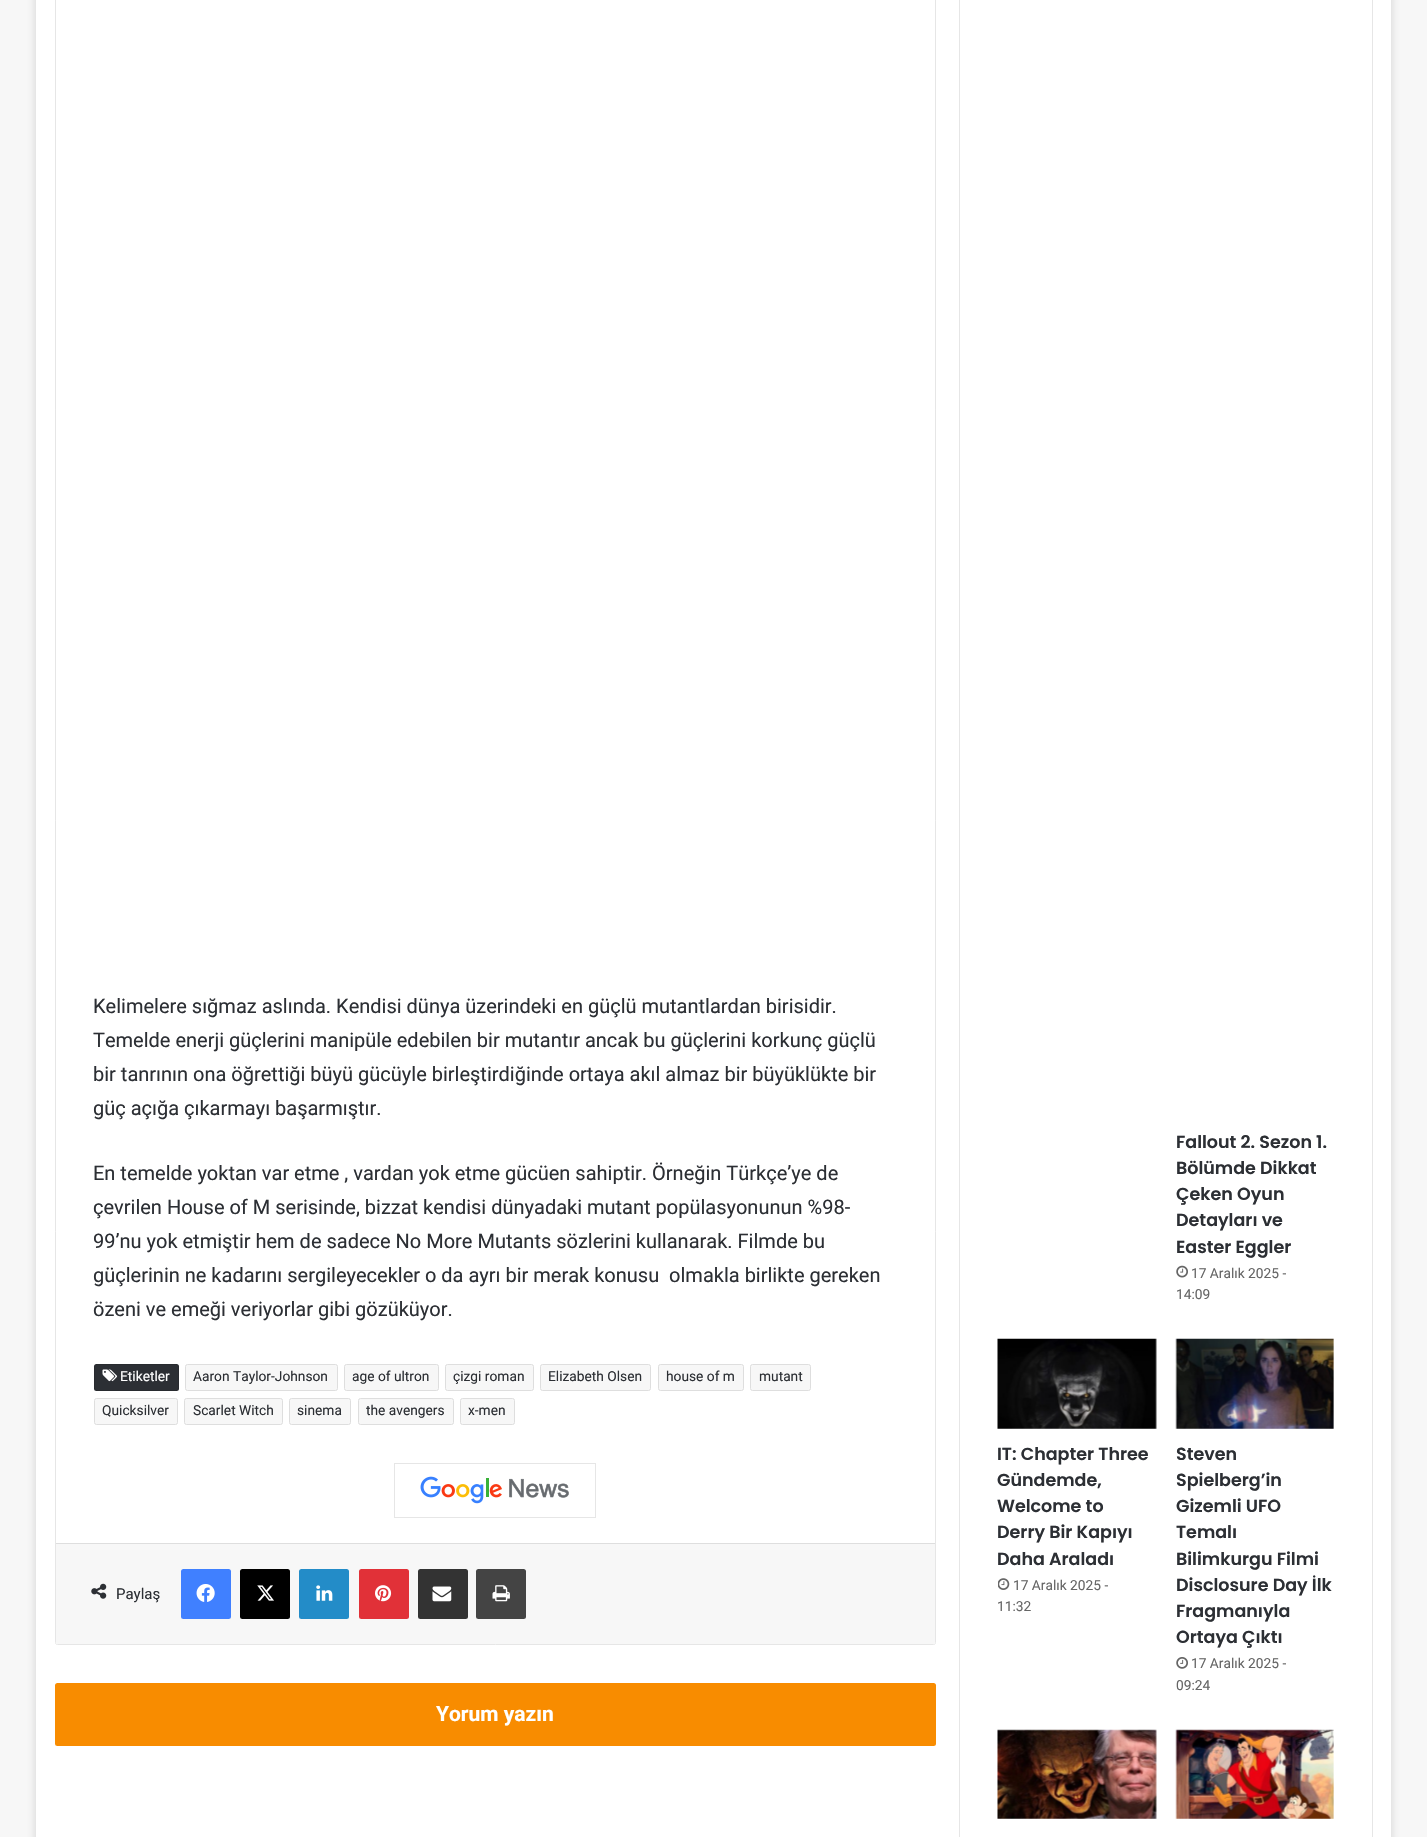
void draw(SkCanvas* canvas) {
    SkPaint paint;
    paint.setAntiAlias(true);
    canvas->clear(0xFFF7F7F7);
    paint.setColor(0x80ABABAB);
    paint.setMaskFilter(SkMaskFilter::MakeBlur(kNormal_SkBlurStyle, 4.5f));
    canvas->drawRect(SkRect::MakeXYWH(36, -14, 1355, 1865), paint);
    paint.setMaskFilter(nullptr);
    paint.setColor(0xFFFFFFFF);
    canvas->drawRect(SkRect::MakeXYWH(36, 0, 1355, 1837), paint);
    paint.setStyle(SkPaint::kStroke_Style);
    paint.setStrokeWidth(1);
    paint.setColor(0xFFE6E6E6);
    canvas->drawRoundRect(SkRect::MakeXYWH(55.5f, -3.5f, 880, 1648), 2, 2, paint);
    SkFont font1(fontMgr->matchFamilyStyle("Roboto", SkFontStyle::Normal()), 20);
    font1.setSubpixel(true);
    paint.setStyle(SkPaint::kFill_Style);
    paint.setColor(0xFF2C2F34);
    canvas->drawString("Kelimelere sığmaz aslında. Kendisi dünya üzerindeki en güçlü mutantlardan birisidir.", 93, 1013, font1, paint);
    canvas->drawString("Temelde enerji güçlerini manipüle edebilen bir mutantır ancak bu güçlerini korkunç güçlü", 93, 1047, font1, paint);
    canvas->drawString("bir tanrının ona öğrettiği büyü gücüyle birleştirdiğinde ortaya akıl almaz bir büyüklükte bir", 93, 1081, font1, paint);
    canvas->drawString("güç açığa çıkarmayı başarmıştır.", 93, 1115, font1, paint);
    canvas->drawString("En temelde yoktan var etme , vardan yok etme gücüen sahiptir. Örneğin Türkçe’ye de", 93, 1180, font1, paint);
    canvas->drawString("çevrilen House of M serisinde, bizzat kendisi dünyadaki mutant popülasyonunun %98-", 93, 1214, font1, paint);
    canvas->drawString("99’nu yok etmiştir hem de sadece No More Mutants sözlerini kullanarak. Filmde bu", 93, 1248, font1, paint);
    canvas->drawString("güçlerinin ne kadarını sergileyecekler o da ayrı bir merak konusu  olmakla birlikte gereken", 93, 1282, font1, paint);
    canvas->drawString("özeni ve emeği veriyorlar gibi gözüküyor.", 93, 1316, font1, paint);
    paint.setColor(0xFFF7F7F7);
    canvas->drawRoundRect(SkRect::MakeXYWH(185.5f, 1364.5f, 152, 26), 2, 2, paint);
    paint.setStyle(SkPaint::kStroke_Style);
    paint.setColor(0xFFDEDEDE);
    canvas->drawRoundRect(SkRect::MakeXYWH(185.5f, 1364.5f, 152, 26), 2, 2, paint);
    SkFont font2(fontMgr->matchFamilyStyle("Roboto", SkFontStyle::Normal()), 13.75f);
    font2.setSubpixel(true);
    paint.setStyle(SkPaint::kFill_Style);
    paint.setColor(0xFF2C2F34);
    canvas->drawString("Aaron Taylor-Johnson", 193, 1381, font2, paint);
    paint.setColor(0xFFF7F7F7);
    canvas->drawRoundRect(SkRect::MakeXYWH(344.5f, 1364.5f, 94, 26), 2, 2, paint);
    paint.setStyle(SkPaint::kStroke_Style);
    paint.setColor(0xFFDEDEDE);
    canvas->drawRoundRect(SkRect::MakeXYWH(344.5f, 1364.5f, 94, 26), 2, 2, paint);
    paint.setStyle(SkPaint::kFill_Style);
    paint.setColor(0xFF2C2F34);
    canvas->drawString("age of ultron", 352, 1381, font2, paint);
    paint.setColor(0xFFF7F7F7);
    canvas->drawRoundRect(SkRect::MakeXYWH(445.5f, 1364.5f, 88, 26), 2, 2, paint);
    paint.setStyle(SkPaint::kStroke_Style);
    paint.setColor(0xFFDEDEDE);
    canvas->drawRoundRect(SkRect::MakeXYWH(445.5f, 1364.5f, 88, 26), 2, 2, paint);
    paint.setStyle(SkPaint::kFill_Style);
    paint.setColor(0xFF2C2F34);
    canvas->drawString("çizgi roman", 453, 1381, font2, paint);
    paint.setColor(0xFFF7F7F7);
    canvas->drawRoundRect(SkRect::MakeXYWH(540.5f, 1364.5f, 110, 26), 2, 2, paint);
    paint.setStyle(SkPaint::kStroke_Style);
    paint.setColor(0xFFDEDEDE);
    canvas->drawRoundRect(SkRect::MakeXYWH(540.5f, 1364.5f, 110, 26), 2, 2, paint);
    paint.setStyle(SkPaint::kFill_Style);
    paint.setColor(0xFF2C2F34);
    canvas->drawString("Elizabeth Olsen", 548, 1381, font2, paint);
    paint.setColor(0xFFF7F7F7);
    canvas->drawRoundRect(SkRect::MakeXYWH(658.5f, 1364.5f, 85, 26), 2, 2, paint);
    paint.setStyle(SkPaint::kStroke_Style);
    paint.setColor(0xFFDEDEDE);
    canvas->drawRoundRect(SkRect::MakeXYWH(658.5f, 1364.5f, 85, 26), 2, 2, paint);
    paint.setStyle(SkPaint::kFill_Style);
    paint.setColor(0xFF2C2F34);
    canvas->drawString("house of m", 666, 1381, font2, paint);
    paint.setColor(0xFFF7F7F7);
    canvas->drawRoundRect(SkRect::MakeXYWH(750.5f, 1364.5f, 60, 26), 2, 2, paint);
    paint.setStyle(SkPaint::kStroke_Style);
    paint.setColor(0xFFDEDEDE);
    canvas->drawRoundRect(SkRect::MakeXYWH(750.5f, 1364.5f, 60, 26), 2, 2, paint);
    paint.setStyle(SkPaint::kFill_Style);
    paint.setColor(0xFF2C2F34);
    canvas->drawString("mutant", 759, 1381, font2, paint);
    paint.setColor(0xFFF7F7F7);
    canvas->drawRoundRect(SkRect::MakeXYWH(94.5f, 1398.5f, 83, 26), 2, 2, paint);
    paint.setStyle(SkPaint::kStroke_Style);
    paint.setColor(0xFFDEDEDE);
    canvas->drawRoundRect(SkRect::MakeXYWH(94.5f, 1398.5f, 83, 26), 2, 2, paint);
    paint.setStyle(SkPaint::kFill_Style);
    paint.setColor(0xFF2C2F34);
    canvas->drawString("Quicksilver", 102, 1415, font2, paint);
    paint.setColor(0xFFF7F7F7);
    canvas->drawRoundRect(SkRect::MakeXYWH(184.5f, 1398.5f, 98, 26), 2, 2, paint);
    paint.setStyle(SkPaint::kStroke_Style);
    paint.setColor(0xFFDEDEDE);
    canvas->drawRoundRect(SkRect::MakeXYWH(184.5f, 1398.5f, 98, 26), 2, 2, paint);
    paint.setStyle(SkPaint::kFill_Style);
    paint.setColor(0xFF2C2F34);
    canvas->drawString("Scarlet Witch", 193, 1415, font2, paint);
    paint.setColor(0xFFF7F7F7);
    canvas->drawRoundRect(SkRect::MakeXYWH(289.5f, 1398.5f, 61, 26), 2, 2, paint);
    paint.setStyle(SkPaint::kStroke_Style);
    paint.setColor(0xFFDEDEDE);
    canvas->drawRoundRect(SkRect::MakeXYWH(289.5f, 1398.5f, 61, 26), 2, 2, paint);
    paint.setStyle(SkPaint::kFill_Style);
    paint.setColor(0xFF2C2F34);
    canvas->drawString("sinema", 297, 1415, font2, paint);
    paint.setColor(0xFFF7F7F7);
    canvas->drawRoundRect(SkRect::MakeXYWH(358.5f, 1398.5f, 95, 26), 2, 2, paint);
    paint.setStyle(SkPaint::kStroke_Style);
    paint.setColor(0xFFDEDEDE);
    canvas->drawRoundRect(SkRect::MakeXYWH(358.5f, 1398.5f, 95, 26), 2, 2, paint);
    paint.setStyle(SkPaint::kFill_Style);
    paint.setColor(0xFF2C2F34);
    canvas->drawString("the avengers", 366, 1415, font2, paint);
    paint.setColor(0xFFF7F7F7);
    canvas->drawRoundRect(SkRect::MakeXYWH(460.5f, 1398.5f, 54, 26), 2, 2, paint);
    paint.setStyle(SkPaint::kStroke_Style);
    paint.setColor(0xFFDEDEDE);
    canvas->drawRoundRect(SkRect::MakeXYWH(460.5f, 1398.5f, 54, 26), 2, 2, paint);
    paint.setStyle(SkPaint::kFill_Style);
    paint.setColor(0xFF2C2F34);
    canvas->drawString("x-men", 468, 1415, font2, paint);
    canvas->drawRoundRect(SkRect::MakeXYWH(94, 1364, 85, 27), 2.5f, 2.5f, paint);
    paint.setStyle(SkPaint::kStroke_Style);
    paint.setColor(0x1A000000);
    canvas->drawRoundRect(SkRect::MakeXYWH(94.5f, 1364.5f, 84, 26), 2, 2, paint);
    canvas->drawImageRect(SkImages::DeferredFromEncodedData(SkData::MakeFromFileName("img1.png")), SkRect::MakeXYWH(102, 1369, 16, 13), SkSamplingOptions());
    paint.setStyle(SkPaint::kFill_Style);
    paint.setColor(0xFFFFFFFF);
    canvas->drawString("Etiketler", 120, 1381, font2, paint);
    paint.setStyle(SkPaint::kStroke_Style);
    paint.setColor(0xFFE6E6E6);
    canvas->drawRect(SkRect::MakeXYWH(394.5f, 1463.5f, 201, 54), paint);
    canvas->drawImageRect(SkImages::DeferredFromEncodedData(SkData::MakeFromFileName("img2.png")), SkRect::MakeXYWH(420, 1476, 149, 28), SkSamplingOptions());
    paint.setStyle(SkPaint::kFill_Style);
    paint.setColor(0xFFF7F7F7);
    canvas->drawRect(SkRect::MakeXYWH(56, 1544, 879, 100), paint);
    paint.setColor(0xFFDEDEDE);
    canvas->drawRect(SkRect::MakeXYWH(56, 1543, 879, 1), paint);
    canvas->drawImageRect(SkImages::DeferredFromEncodedData(SkData::MakeFromFileName("img3.png")), SkRect::MakeXYWH(91, 1583, 16, 16), SkSamplingOptions());
    SkFont font3(fontMgr->matchFamilyStyle("Roboto", SkFontStyle::Normal()), 15);
    font3.setSubpixel(true);
    paint.setColor(0xFF2C2F34);
    canvas->drawString("Paylaş", 116, 1599, font3, paint);
    paint.setColor(0xFF4080FF);
    canvas->drawRoundRect(SkRect::MakeXYWH(181, 1569, 50, 50), 2.5f, 2.5f, paint);
    canvas->drawImageRect(SkImages::DeferredFromEncodedData(SkData::MakeFromFileName("img4.png")), SkRect::MakeXYWH(196, 1584, 19, 18), SkSamplingOptions());
    paint.setColor(0xFF000000);
    canvas->drawRoundRect(SkRect::MakeXYWH(240, 1569, 50, 50), 2.5f, 2.5f, paint);
    canvas->drawImageRect(SkImages::DeferredFromEncodedData(SkData::MakeFromFileName("img5.png")), SkRect::MakeXYWH(257, 1585, 17, 16), SkSamplingOptions());
    paint.setColor(0xFF238CC8);
    canvas->drawRoundRect(SkRect::MakeXYWH(299, 1569, 50, 50), 2.5f, 2.5f, paint);
    canvas->drawImageRect(SkImages::DeferredFromEncodedData(SkData::MakeFromFileName("img6.png")), SkRect::MakeXYWH(316, 1585, 17, 16), SkSamplingOptions());
    paint.setColor(0xFFE13138);
    canvas->drawRoundRect(SkRect::MakeXYWH(359, 1569, 50, 50), 2.5f, 2.5f, paint);
    canvas->drawImageRect(SkImages::DeferredFromEncodedData(SkData::MakeFromFileName("img7.png")), SkRect::MakeXYWH(375, 1585, 17, 17), SkSamplingOptions());
    paint.setColor(0xFF333333);
    canvas->drawRoundRect(SkRect::MakeXYWH(418, 1569, 50, 50), 2.5f, 2.5f, paint);
    canvas->drawImageRect(SkImages::DeferredFromEncodedData(SkData::MakeFromFileName("img8.png")), SkRect::MakeXYWH(432, 1586, 20, 16), SkSamplingOptions());
    paint.setColor(0xFF444444);
    canvas->drawRoundRect(SkRect::MakeXYWH(476, 1569, 50, 50), 2.5f, 2.5f, paint);
    canvas->drawImageRect(SkImages::DeferredFromEncodedData(SkData::MakeFromFileName("img9.png")), SkRect::MakeXYWH(492, 1585, 18, 17), SkSamplingOptions());
    paint.setColor(0xFFF88C00);
    canvas->drawRoundRect(SkRect::MakeXYWH(55, 1683, 881, 63), 2.5f, 2.5f, paint);
    SkFont font4(fontMgr->matchFamilyStyle("Roboto", SkFontStyle::Bold()), 21);
    font4.setSubpixel(true);
    paint.setColor(0xFFFFFFFF);
    canvas->drawString("Yorum yazın", 436, 1721, font4, paint);
    paint.setStyle(SkPaint::kStroke_Style);
    paint.setColor(0xFFE6E6E6);
    canvas->drawRect(SkRect::MakeXYWH(959.5f, -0.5f, 413, 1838), paint);
    SkFont font5(fontMgr->matchFamilyStyle("Poppins", SkFontStyle(600, SkFontStyle::kNormal_Width, SkFontStyle::kUpright_Slant)), 17.5f);
    font5.setSubpixel(true);
    paint.setStyle(SkPaint::kFill_Style);
    paint.setColor(0xFF2C2F34);
    canvas->drawString("Fallout 2. Sezon 1.", 1176, 1148, font5, paint);
    canvas->drawString("Bölümde Dikkat", 1176, 1174, font5, paint);
    canvas->drawString("Çeken Oyun", 1176, 1200, font5, paint);
    canvas->drawString("Detayları ve", 1176, 1226, font5, paint);
    canvas->drawString("Easter Eggler", 1176, 1253, font5, paint);
    canvas->drawImageRect(SkImages::DeferredFromEncodedData(SkData::MakeFromFileName("img10.png")), SkRect::MakeXYWH(1176, 1265, 12, 13), SkSamplingOptions());
    paint.setColor(0xFF666666);
    canvas->drawString("17 Aralık 2025 -", 1191, 1278, font2, paint);
    canvas->drawString("14:09", 1176, 1299, font2, paint);
    canvas->drawImageRect(SkImages::DeferredFromEncodedData(SkData::MakeFromFileName("img11.png")), SkRect::MakeXYWH(997, 1338, 160, 91), SkSamplingOptions());
    paint.setColor(0xFF2C2F34);
    canvas->drawString("IT: Chapter Three", 997, 1460, font5, paint);
    canvas->drawString("Gündemde,", 997, 1486, font5, paint);
    canvas->drawString("Welcome to", 997, 1512, font5, paint);
    canvas->drawString("Derry Bir Kapıyı", 997, 1538, font5, paint);
    canvas->drawString("Daha Araladı", 997, 1565, font5, paint);
    canvas->drawImageRect(SkImages::DeferredFromEncodedData(SkData::MakeFromFileName("img12.png")), SkRect::MakeXYWH(998, 1578, 12, 12), SkSamplingOptions());
    paint.setColor(0xFF666666);
    canvas->drawString("17 Aralık 2025 -", 1013, 1590, font2, paint);
    canvas->drawString("11:32", 997, 1611, font2, paint);
    canvas->drawImageRect(SkImages::DeferredFromEncodedData(SkData::MakeFromFileName("img13.png")), SkRect::MakeXYWH(1175, 1338, 159, 91), SkSamplingOptions());
    paint.setColor(0xFF2C2F34);
    canvas->drawString("Steven", 1176, 1460, font5, paint);
    canvas->drawString("Spielberg’in", 1176, 1486, font5, paint);
    canvas->drawString("Gizemli UFO", 1176, 1512, font5, paint);
    canvas->drawString("Temalı", 1176, 1538, font5, paint);
    canvas->drawString("Bilimkurgu Filmi", 1176, 1565, font5, paint);
    canvas->drawString("Disclosure Day İlk", 1176, 1591, font5, paint);
    canvas->drawString("Fragmanıyla", 1176, 1617, font5, paint);
    canvas->drawString("Ortaya Çıktı", 1176, 1643, font5, paint);
    canvas->drawImageRect(SkImages::DeferredFromEncodedData(SkData::MakeFromFileName("img14.png")), SkRect::MakeXYWH(1176, 1657, 12, 12), SkSamplingOptions());
    paint.setColor(0xFF666666);
    canvas->drawString("17 Aralık 2025 -", 1191, 1668, font2, paint);
    canvas->drawString("09:24", 1176, 1690, font2, paint);
    canvas->drawImageRect(SkImages::DeferredFromEncodedData(SkData::MakeFromFileName("img15.png")), SkRect::MakeXYWH(997, 1729, 160, 90), SkSamplingOptions());
    canvas->drawImageRect(SkImages::DeferredFromEncodedData(SkData::MakeFromFileName("img16.png")), SkRect::MakeXYWH(1175, 1729, 159, 90), SkSamplingOptions());
}
